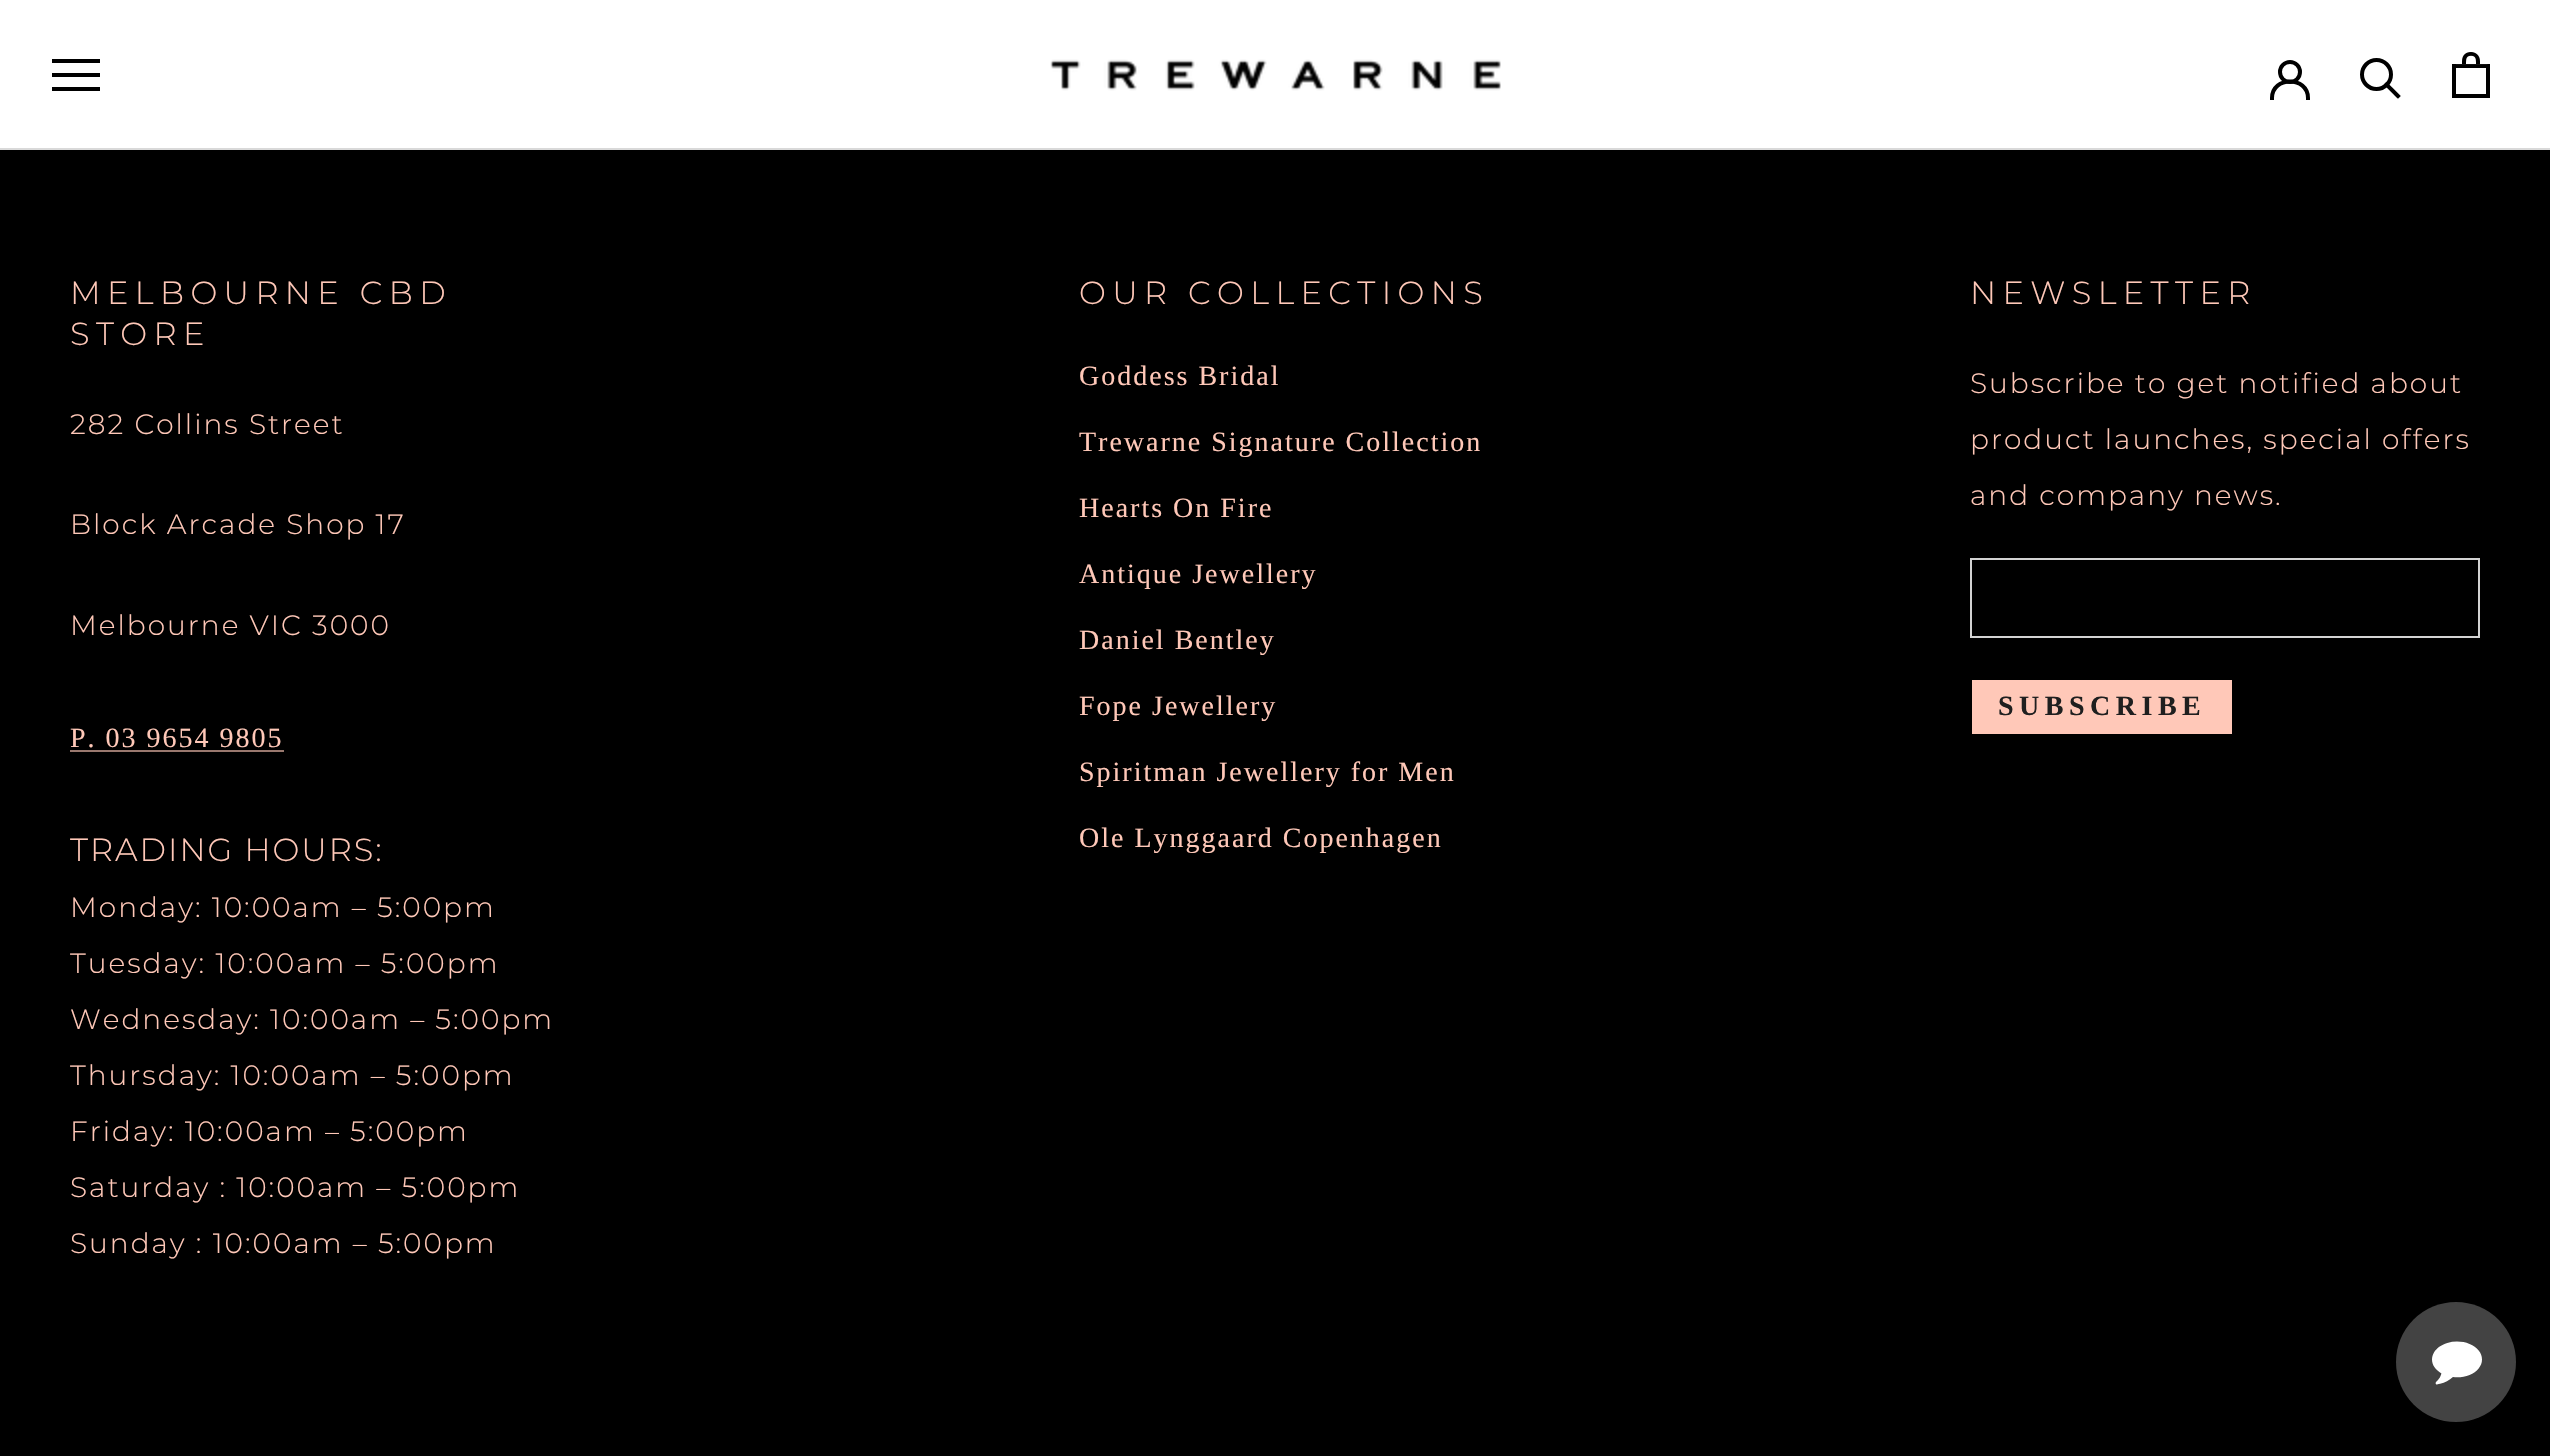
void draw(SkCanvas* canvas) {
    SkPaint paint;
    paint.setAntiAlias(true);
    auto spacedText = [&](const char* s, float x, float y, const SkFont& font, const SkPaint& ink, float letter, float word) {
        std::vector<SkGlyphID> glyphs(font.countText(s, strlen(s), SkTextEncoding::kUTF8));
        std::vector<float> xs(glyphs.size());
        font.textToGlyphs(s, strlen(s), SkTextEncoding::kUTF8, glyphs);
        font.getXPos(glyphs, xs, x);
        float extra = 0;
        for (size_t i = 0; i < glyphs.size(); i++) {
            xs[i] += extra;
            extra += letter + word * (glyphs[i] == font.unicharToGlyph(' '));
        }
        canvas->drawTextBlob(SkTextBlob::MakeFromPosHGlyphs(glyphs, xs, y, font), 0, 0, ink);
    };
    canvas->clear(0xFF000000);
    paint.setColor(0xFFFFFFFF);
    canvas->drawRect(SkRect::MakeXYWH(0, 0, 2550, 148), paint);
    paint.setColor(0xFFD9D9D9);
    canvas->drawRect(SkRect::MakeXYWH(0, 148, 2550, 2), paint);
    paint.setColor(0xFF000000);
    canvas->drawPath(SkPathBuilder().moveTo(52, 91).lineTo(52, 87).lineTo(100, 87).lineTo(100, 91).close().moveTo(52, 73).lineTo(100, 73).lineTo(100, 77).lineTo(52, 77).close().moveTo(52, 59).lineTo(100, 59).lineTo(100, 63).lineTo(52, 63).close().detach(), paint);
    canvas->drawImageRect(SkImages::DeferredFromEncodedData(SkData::MakeFromFileName("img1.png")), SkRect::MakeXYWH(1050, 59, 451, 32), SkSamplingOptions());
    paint.setStyle(SkPaint::kStroke_Style);
    paint.setStrokeWidth(4);
    paint.setStrokeCap(SkPaint::kSquare_Cap);
    canvas->drawPath(SkPathBuilder().moveTo(2272, 98).cubicTo(2272, 76, 2308, 76, 2308, 98).detach(), paint);
    paint.setStrokeCap(SkPaint::kButt_Cap);
    canvas->drawCircle(2290, 72, 10, paint);
    paint.setStrokeCap(SkPaint::kSquare_Cap);
    canvas->drawPath(SkPathBuilder().moveTo(2398, 96).lineTo(2386.5f, 84.5f).detach(), paint);
    paint.setStrokeCap(SkPaint::kButt_Cap);
    canvas->drawCircle(2376.5f, 74.5f, 14.5f, paint);
    canvas->drawImageRect(SkImages::DeferredFromEncodedData(SkData::MakeFromFileName("img2.png")), SkRect::MakeXYWH(2452, 52, 38, 46), SkSamplingOptions());
    SkFont font1(fontMgr->matchFamilyStyle("montserrat", SkFontStyle(300, SkFontStyle::kNormal_Width, SkFontStyle::kUpright_Slant)), 32);
    font1.setSubpixel(true);
    paint.setStyle(SkPaint::kFill_Style);
    paint.setColor(0xFFFFC8B8);
    spacedText("MELBOURNE CBD", 70, 304, font1, paint, 6.4f, 0);
    spacedText("STORE", 70, 345, font1, paint, 6.4f, 0);
    SkFont font2(fontMgr->matchFamilyStyle("montserrat", SkFontStyle(300, SkFontStyle::kNormal_Width, SkFontStyle::kUpright_Slant)), 28);
    font2.setSubpixel(true);
    spacedText("282 Collins Street", 70, 434, font2, paint, 2, 0);
    spacedText("Block Arcade Shop 17", 70, 534, font2, paint, 2, 0);
    spacedText("Melbourne VIC 3000", 70, 635, font2, paint, 2, 0);
    SkFont font3(fontMgr->matchFamilyStyle("Liberation Serif", SkFontStyle::Normal()), 28);
    font3.setSubpixel(true);
    spacedText("P. 03 9654 9805", 70, 747, font3, paint, 2, 0);
    paint.setColor(0xFF99786E);
    canvas->drawRect(SkRect::MakeXYWH(70, 750, 214, 2), paint);
    paint.setColor(0xFFFFC8B8);
    spacedText("TRADING HOURS:", 70, 861, font1, paint, 2, 0);
    spacedText("Monday: 10:00am – 5:00pm", 70, 917, font2, paint, 2, 0);
    spacedText("Tuesday: 10:00am – 5:00pm", 70, 973, font2, paint, 2, 0);
    spacedText("Wednesday: 10:00am – 5:00pm", 70, 1029, font2, paint, 2, 0);
    spacedText("Thursday: 10:00am – 5:00pm", 70, 1085, font2, paint, 2, 0);
    spacedText("Friday: 10:00am – 5:00pm", 70, 1141, font2, paint, 2, 0);
    spacedText("Saturday : 10:00am – 5:00pm", 70, 1197, font2, paint, 2, 0);
    spacedText("Sunday : 10:00am – 5:00pm", 70, 1253, font2, paint, 2, 0);
    spacedText("OUR COLLECTIONS", 1079, 304, font1, paint, 6.4f, 0);
    spacedText("Goddess Bridal", 1079, 385, font3, paint, 2, 0);
    spacedText("Trewarne Signature Collection", 1079, 451, font3, paint, 2, 0);
    spacedText("Hearts On Fire", 1079, 517, font3, paint, 2, 0);
    spacedText("Antique Jewellery", 1079, 583, font3, paint, 2, 0);
    spacedText("Daniel Bentley", 1079, 649, font3, paint, 2, 0);
    spacedText("Fope Jewellery", 1079, 715, font3, paint, 2, 0);
    spacedText("Spiritman Jewellery for Men", 1079, 781, font3, paint, 2, 0);
    spacedText("Ole Lynggaard Copenhagen", 1079, 847, font3, paint, 2, 0);
    spacedText("NEWSLETTER", 1970, 304, font1, paint, 6.4f, 0);
    spacedText("Subscribe to get notified about", 1970, 393, font2, paint, 2, 0);
    spacedText("product launches, special offers", 1970, 449, font2, paint, 2, 0);
    spacedText("and company news.", 1970, 505, font2, paint, 2, 0);
    paint.setStyle(SkPaint::kStroke_Style);
    paint.setStrokeWidth(2);
    paint.setColor(0xFFD3D3D3);
    canvas->drawRect(SkRect::MakeXYWH(1971, 559, 508, 78), paint);
    paint.setStyle(SkPaint::kFill_Style);
    paint.setColor(0xFFFFC8B8);
    canvas->drawRect(SkRect::MakeXYWH(1972, 680, 260, 54), paint);
    SkFont font4(fontMgr->matchFamilyStyle("Liberation Serif", SkFontStyle::Bold()), 28);
    font4.setSubpixel(true);
    paint.setColor(0xFF1F1F1F);
    spacedText("SUBSCRIBE", 1998, 715, font4, paint, 5.5f, 0);
    canvas->drawImageRect(SkImages::DeferredFromEncodedData(SkData::MakeFromFileName("img3.png")), SkRect::MakeXYWH(2396, 1302, 120, 120), SkSamplingOptions());
}
